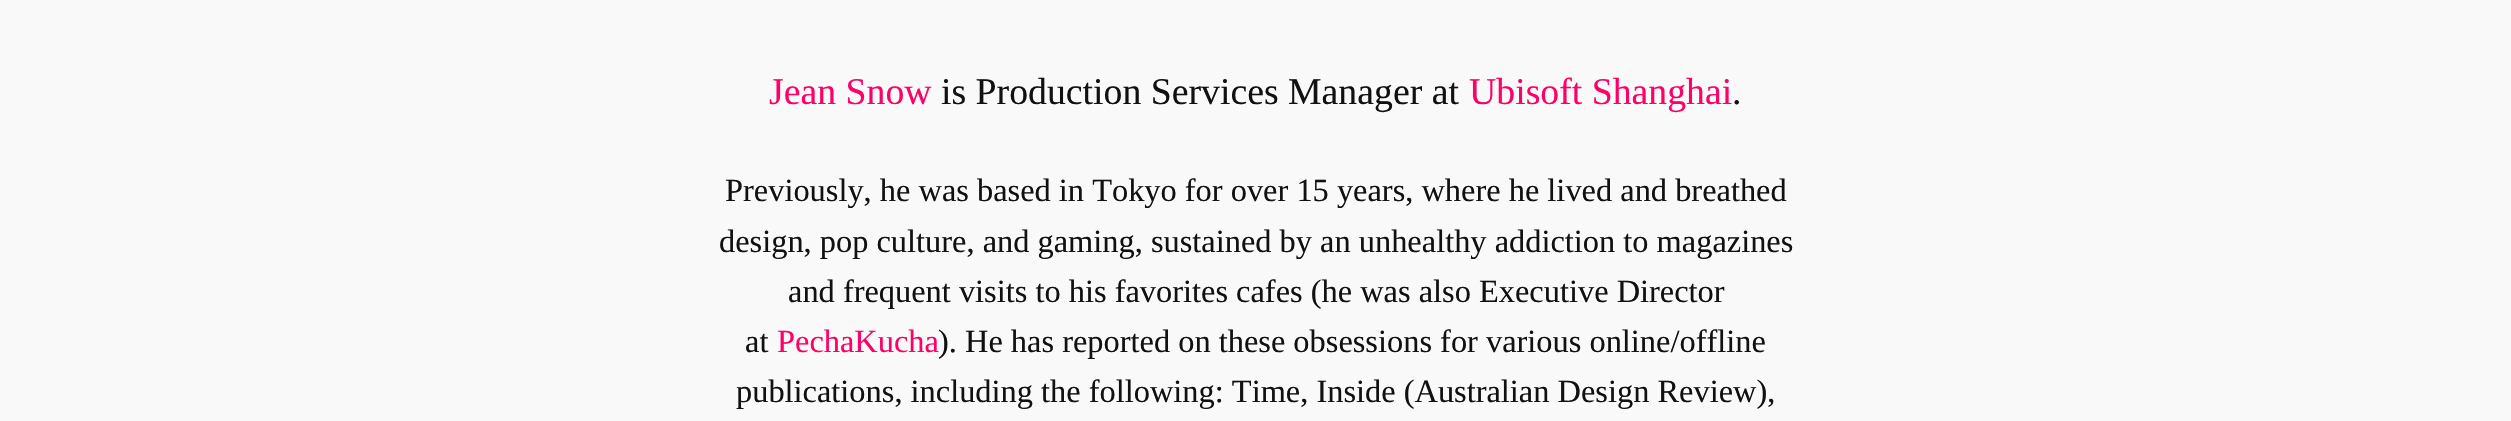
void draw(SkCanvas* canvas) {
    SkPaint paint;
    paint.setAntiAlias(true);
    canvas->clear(0xFFF9F9F9);
    SkFont font1(fontMgr->matchFamilyStyle("Liberation Serif", SkFontStyle::Normal()), 37.75f);
    font1.setSubpixel(true);
    paint.setColor(0xFFFF0068);
    canvas->drawString("Jean Snow", 769, 104, font1, paint);
    paint.setColor(0xFF111111);
    canvas->drawString("is Production Services Manager at", 941, 104, font1, paint);
    paint.setColor(0xFFFF0068);
    canvas->drawString("Ubisoft Shanghai", 1469, 104, font1, paint);
    paint.setColor(0xFF111111);
    canvas->drawString(".", 1732, 104, font1, paint);
    SkFont font2(fontMgr->matchFamilyStyle("Liberation Serif", SkFontStyle::Normal()), 32.4f);
    font2.setSubpixel(true);
    canvas->drawString("Previously, he was based in Tokyo for over 15 years, where he lived and breathed", 725, 201, font2, paint);
    canvas->drawString("design, pop culture, and gaming, sustained by an unhealthy addiction to magazines", 719, 252, font2, paint);
    canvas->drawString("and frequent visits to his favorites cafes (he was also Executive Director", 788, 302, font2, paint);
    canvas->drawString("at", 745, 352, font2, paint);
    paint.setColor(0xFFFF0068);
    canvas->drawString("PechaKucha", 777, 352, font2, paint);
    paint.setColor(0xFF111111);
    canvas->drawString("). He has reported on these obsessions for various online/offline", 938, 352, font2, paint);
    canvas->drawString("publications, including the following: Time, Inside (Australian Design Review),", 736, 402, font2, paint);
}
